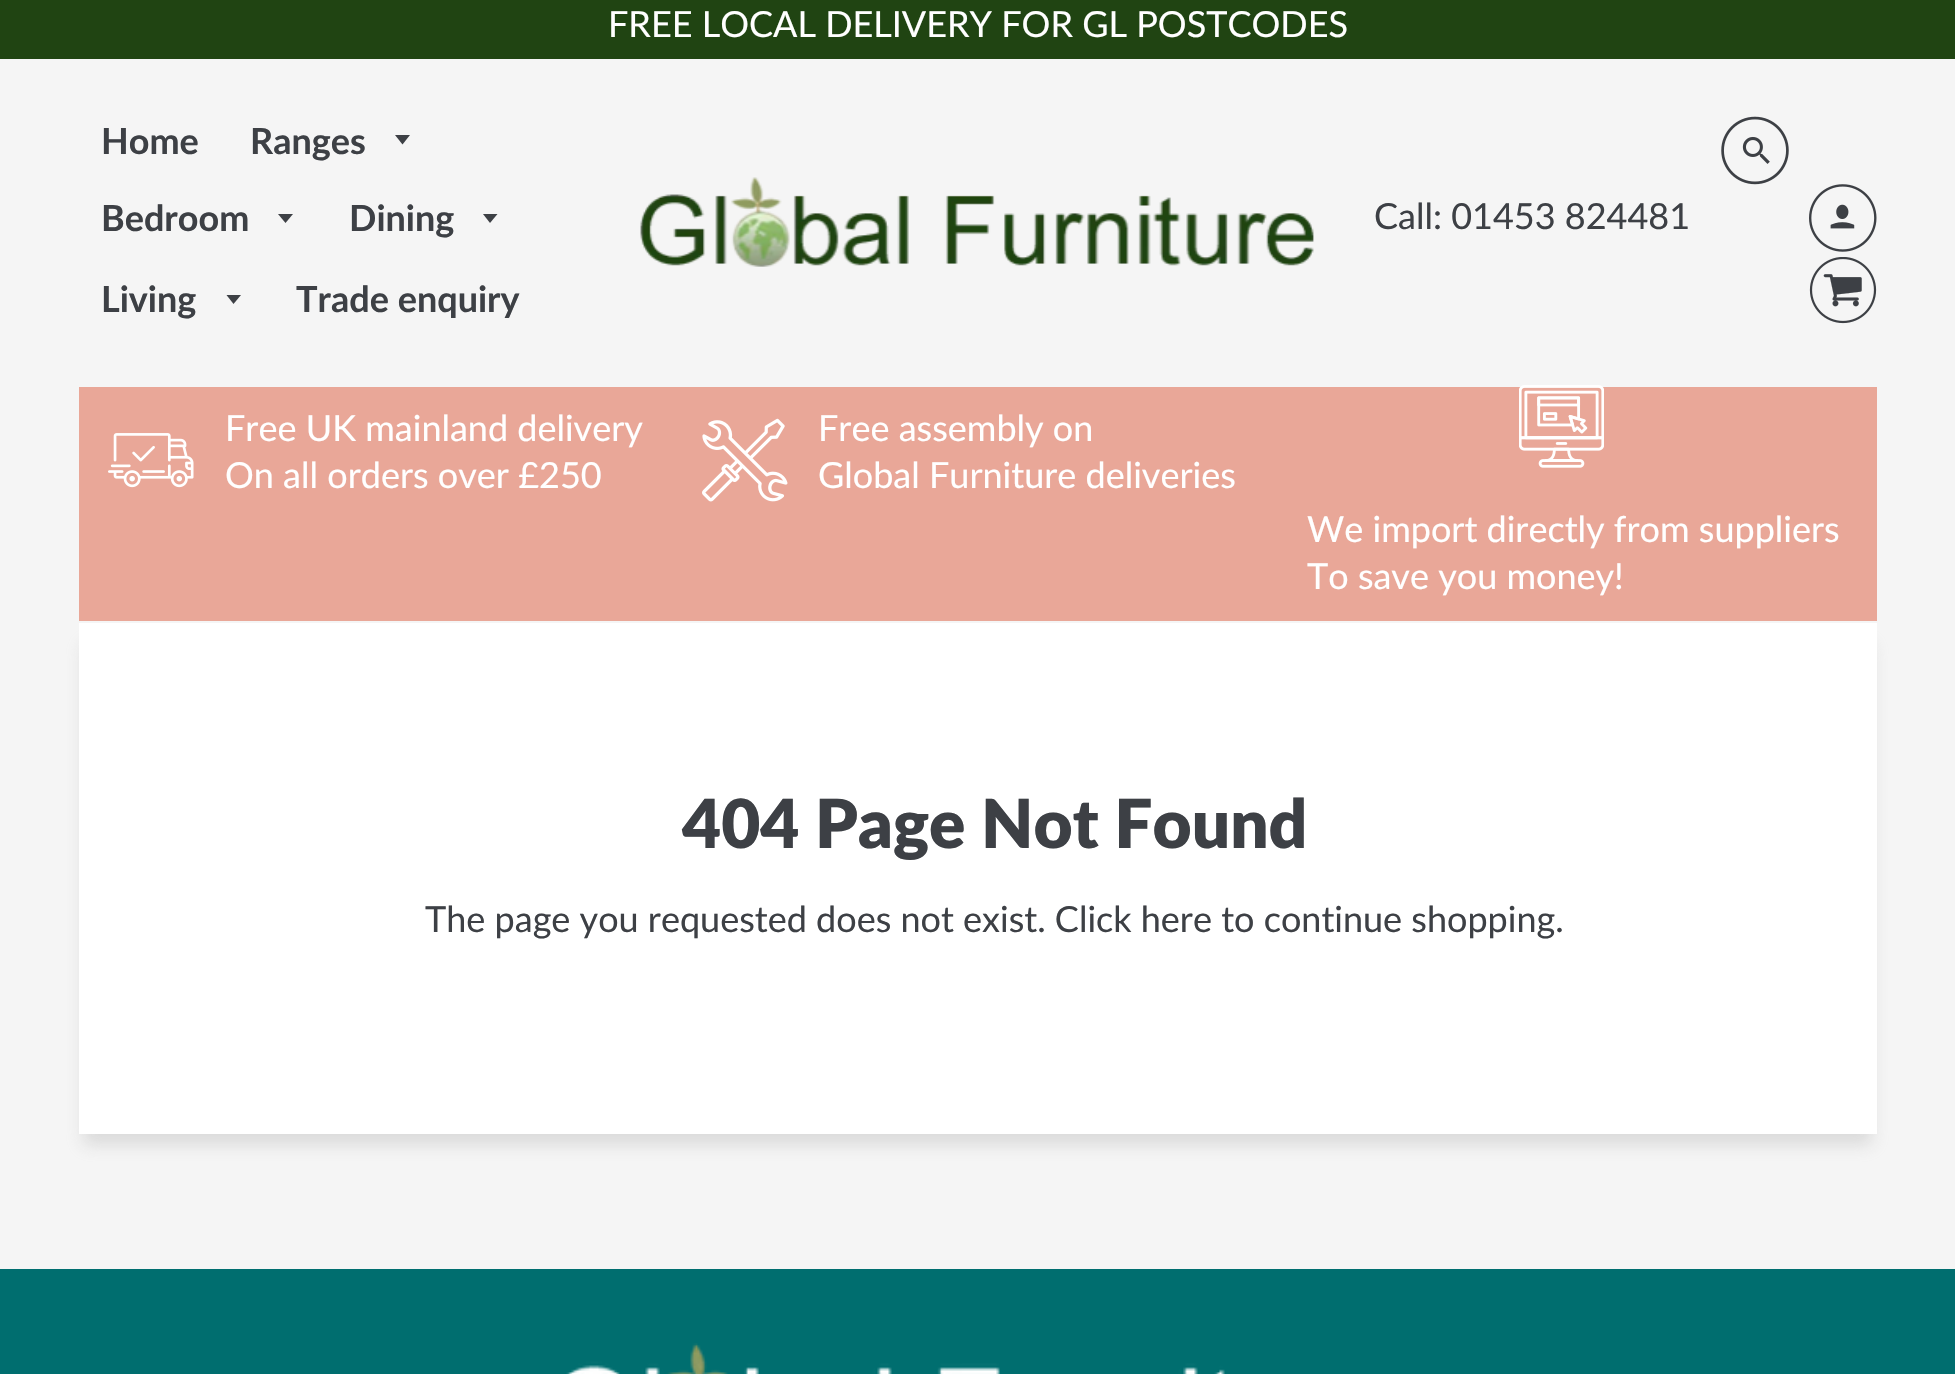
void draw(SkCanvas* canvas) {
    SkPaint paint;
    paint.setAntiAlias(true);
    canvas->clear(0xFFF5F5F5);
    paint.setColor(0xFF204412);
    canvas->drawRect(SkRect::MakeXYWH(0, 0, 1955, 59), paint);
    SkFont font1(fontMgr->matchFamilyStyle("Lato", SkFontStyle::Normal()), 36);
    font1.setSubpixel(true);
    paint.setColor(0xFFFFFFFF);
    canvas->drawString("FREE LOCAL DELIVERY FOR GL POSTCODES", 608, 37, font1, paint);
    SkFont font2(fontMgr->matchFamilyStyle("Lato", SkFontStyle::Bold()), 36);
    font2.setSubpixel(true);
    paint.setColor(0xFF3D4045);
    canvas->drawString("Home", 101, 154, font2, paint);
    canvas->drawString("Ranges", 250, 154, font2, paint);
    canvas->drawPath(SkPathBuilder().moveTo(395, 135).lineTo(402.5f, 144.5f).lineTo(410, 135).close().detach(), paint);
    canvas->drawString("Bedroom", 101, 231, font2, paint);
    canvas->drawPath(SkPathBuilder().moveTo(278, 214).lineTo(285.5f, 223).lineTo(293, 214).close().detach(), paint);
    canvas->drawString("Dining", 349, 231, font2, paint);
    canvas->drawPath(SkPathBuilder().moveTo(483, 214).lineTo(490, 223).lineTo(497.5f, 214).close().detach(), paint);
    canvas->drawString("Living", 101, 312, font2, paint);
    canvas->drawPath(SkPathBuilder().moveTo(226.5f, 295).lineTo(233.5f, 304).lineTo(241, 295).close().detach(), paint);
    canvas->drawString("Trade enquiry", 296, 312, font2, paint);
    canvas->drawImageRect(SkImages::DeferredFromEncodedData(SkData::MakeFromFileName("img1.png")), SkRect::MakeXYWH(640, 177, 674, 90), SkSamplingOptions());
    canvas->drawImageRect(SkImages::DeferredFromEncodedData(SkData::MakeFromFileName("img2.png")), SkRect::MakeXYWH(1721, 116, 68, 69), SkSamplingOptions());
    canvas->drawString("Call: 01453 824481", 1374, 229, font1, paint);
    canvas->drawImageRect(SkImages::DeferredFromEncodedData(SkData::MakeFromFileName("img3.png")), SkRect::MakeXYWH(1809, 184, 68, 68), SkSamplingOptions());
    canvas->drawImageRect(SkImages::DeferredFromEncodedData(SkData::MakeFromFileName("img4.png")), SkRect::MakeXYWH(1809, 257, 68, 67), SkSamplingOptions());
    paint.setColor(0x52A3A3A3);
    paint.setMaskFilter(SkMaskFilter::MakeBlur(kNormal_SkBlurStyle, 8));
    canvas->drawRect(SkRect::MakeXYWH(83, 644, 1789, 501), paint);
    paint.setMaskFilter(nullptr);
    paint.setColor(0xFFE9A798);
    canvas->drawRect(SkRect::MakeXYWH(79, 387, 1798, 234), paint);
    canvas->drawImageRect(SkImages::DeferredFromEncodedData(SkData::MakeFromFileName("img5.png")), SkRect::MakeXYWH(108, 433, 86, 55), SkSamplingOptions());
    paint.setColor(0xFFFFFFFF);
    canvas->drawString("Free UK mainland delivery", 225, 441, font1, paint);
    canvas->drawString("On all orders over £250", 225, 488, font1, paint);
    canvas->drawImageRect(SkImages::DeferredFromEncodedData(SkData::MakeFromFileName("img6.png")), SkRect::MakeXYWH(702, 418, 86, 84), SkSamplingOptions());
    canvas->drawString("Free assembly on", 818, 441, font1, paint);
    canvas->drawString("Global Furniture deliveries", 818, 488, font1, paint);
    canvas->drawImageRect(SkImages::DeferredFromEncodedData(SkData::MakeFromFileName("img7.png")), SkRect::MakeXYWH(1519, 385, 85, 83), SkSamplingOptions());
    canvas->drawString("We import directly from suppliers", 1307, 542, font1, paint);
    canvas->drawString("To save you money!", 1307, 589, font1, paint);
    canvas->drawRect(SkRect::MakeXYWH(79, 623, 1798, 511), paint);
    SkFont font3(fontMgr->matchFamilyStyle("Lato", SkFontStyle(800, SkFontStyle::kNormal_Width, SkFontStyle::kUpright_Slant)), 67.5f);
    font3.setSubpixel(true);
    paint.setColor(0xFF3D4045);
    canvas->drawString("404 Page Not Found", 682, 848, font3, paint);
    canvas->drawString("The page you requested does not exist. Click here to continue shopping.", 425, 932, font1, paint);
    paint.setColor(0xFF006E6F);
    canvas->drawRect(SkRect::MakeXYWH(0, 1269, 1955, 105), paint);
    canvas->drawImageRect(SkImages::DeferredFromEncodedData(SkData::MakeFromFileName("img8.png")), SkRect::MakeXYWH(566, 1343, 659, 31), SkSamplingOptions());
}
